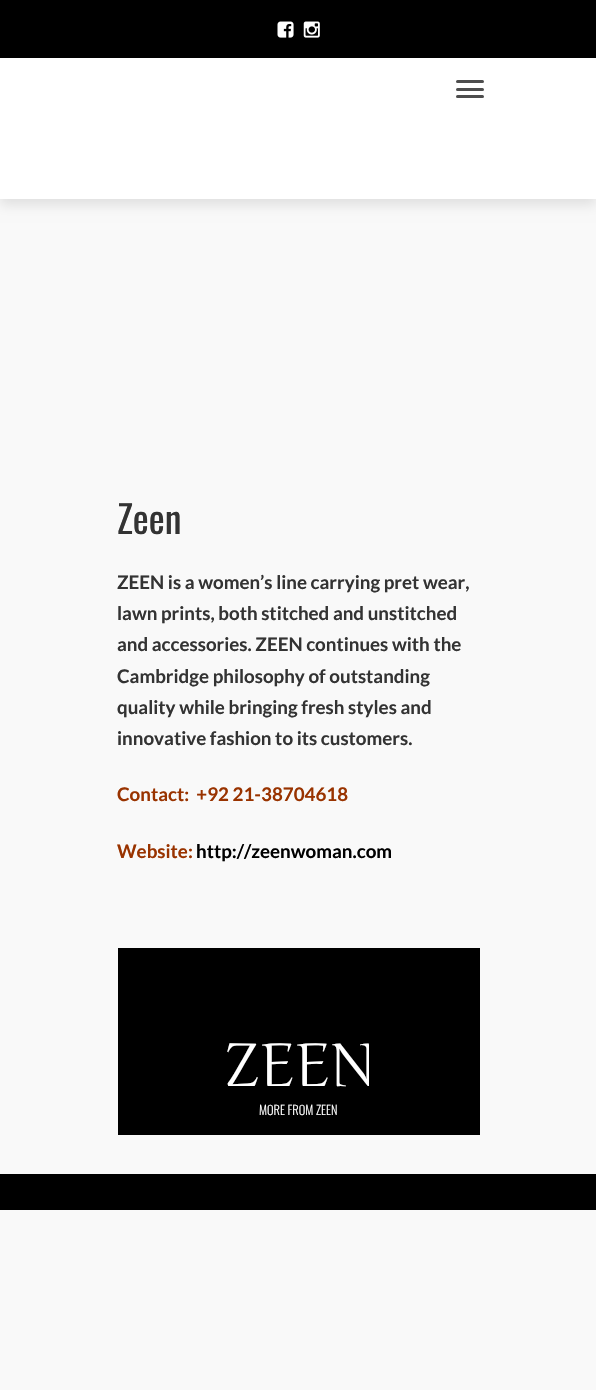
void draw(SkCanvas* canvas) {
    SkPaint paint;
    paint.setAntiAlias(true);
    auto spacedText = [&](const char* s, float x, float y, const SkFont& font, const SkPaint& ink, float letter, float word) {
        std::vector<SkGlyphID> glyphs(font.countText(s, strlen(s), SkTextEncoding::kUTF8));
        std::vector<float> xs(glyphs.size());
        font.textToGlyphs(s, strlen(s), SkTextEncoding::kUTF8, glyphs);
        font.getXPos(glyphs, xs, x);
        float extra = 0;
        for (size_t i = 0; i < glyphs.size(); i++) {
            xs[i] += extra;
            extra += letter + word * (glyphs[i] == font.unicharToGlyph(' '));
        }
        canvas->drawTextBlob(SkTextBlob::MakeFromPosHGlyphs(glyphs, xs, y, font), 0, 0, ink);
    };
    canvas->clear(0xFFF9F9F9);
    paint.setColor(0xFF000000);
    canvas->drawRect(SkRect::MakeXYWH(0, 0, 596, 58), paint);
    canvas->drawImageRect(SkImages::DeferredFromEncodedData(SkData::MakeFromFileName("img1.png")), SkRect::MakeXYWH(277, 21, 17, 17), SkSamplingOptions());
    canvas->drawImageRect(SkImages::DeferredFromEncodedData(SkData::MakeFromFileName("img2.png")), SkRect::MakeXYWH(303, 21, 17, 17), SkSamplingOptions());
    paint.setColor(0x1A000000);
    paint.setMaskFilter(SkMaskFilter::MakeBlur(kNormal_SkBlurStyle, 6));
    canvas->drawRect(SkRect::MakeXYWH(0, 64, 596, 141), paint);
    paint.setMaskFilter(nullptr);
    paint.setColor(0xFFFFFFFF);
    canvas->drawRect(SkRect::MakeXYWH(0, 58, 596, 141), paint);
    paint.setColor(0xFF4D4D4D);
    canvas->drawRoundRect(SkRect::MakeXYWH(456, 80, 28, 3), 1.5f, 1.5f, paint);
    canvas->drawRoundRect(SkRect::MakeXYWH(456, 88, 28, 3), 1.5f, 1.5f, paint);
    canvas->drawRoundRect(SkRect::MakeXYWH(456, 95, 28, 3), 1.5f, 1.5f, paint);
    SkFont font1(fontMgr->matchFamilyStyle("Oswald", SkFontStyle::Normal()), 38);
    font1.setSubpixel(true);
    paint.setColor(0xFF333333);
    canvas->drawString("Zeen", 117, 534, font1, paint);
    SkFont font2(fontMgr->matchFamilyStyle("Lato", SkFontStyle::Bold()), 18.75f);
    font2.setSubpixel(true);
    canvas->drawString("ZEEN is a women’s line carrying pret wear,", 117, 589, font2, paint);
    canvas->drawString("lawn prints, both stitched and unstitched", 117, 620, font2, paint);
    canvas->drawString("and accessories. ZEEN continues with the", 117, 651, font2, paint);
    canvas->drawString("Cambridge philosophy of outstanding", 117, 683, font2, paint);
    canvas->drawString("quality while bringing fresh styles and", 117, 714, font2, paint);
    canvas->drawString("innovative fashion to its customers.", 117, 745, font2, paint);
    paint.setColor(0xFF993300);
    canvas->drawString("Contact:  +92 21-38704618", 117, 801, font2, paint);
    canvas->drawString("Website:", 117, 858, font2, paint);
    paint.setColor(0xFF000000);
    canvas->drawString("http://zeenwoman.com", 196, 858, font2, paint);
    canvas->drawRect(SkRect::MakeXYWH(118, 948, 362, 187), paint);
    SkFont font3(fontMgr->matchFamilyStyle("Junge", SkFontStyle::Normal()), 60);
    font3.setSubpixel(true);
    paint.setColor(0xFFFFFFFF);
    spacedText("ZEEN", 224, 1086, font3, paint, -2.5f, 0);
    SkFont font4(fontMgr->matchFamilyStyle("Oswald", SkFontStyle(300, SkFontStyle::kNormal_Width, SkFontStyle::kUpright_Slant)), 12.5f);
    font4.setSubpixel(true);
    canvas->drawString("MORE FROM ZEEN", 259, 1115, font4, paint);
    paint.setColor(0xFF000000);
    canvas->drawRect(SkRect::MakeXYWH(0, 1174, 596, 36), paint);
}
